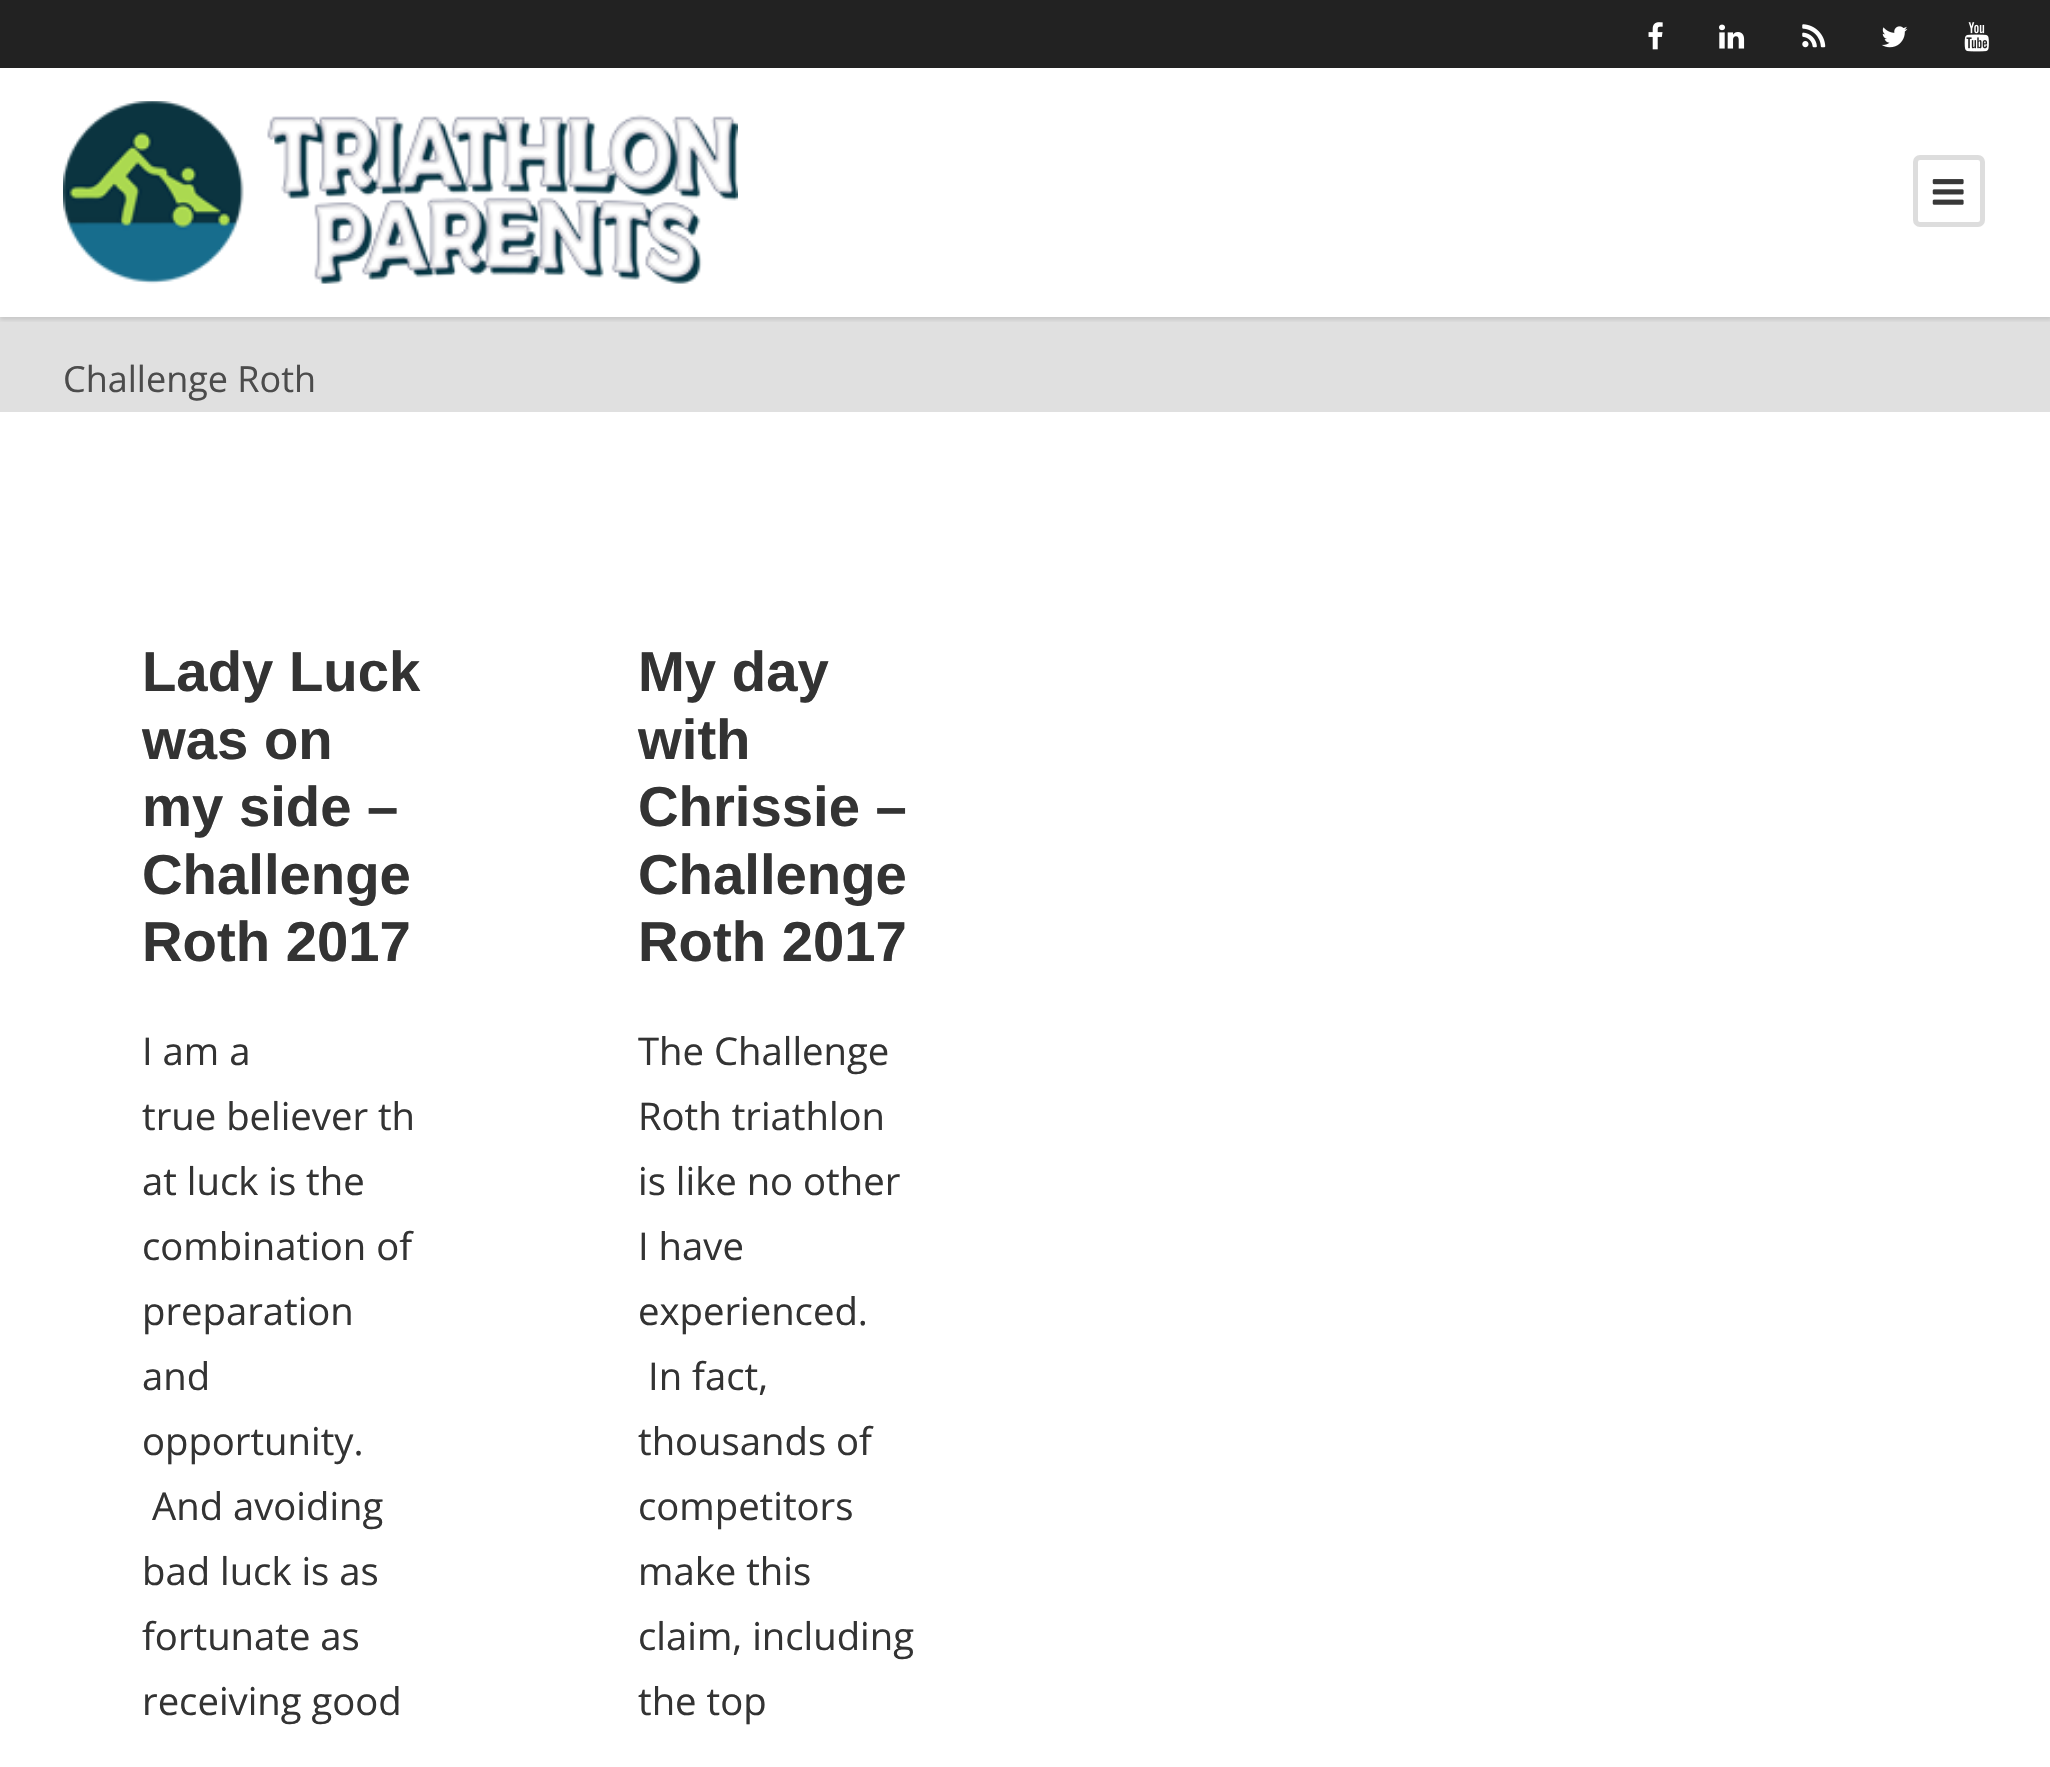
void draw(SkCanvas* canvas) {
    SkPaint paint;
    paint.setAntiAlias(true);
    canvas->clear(0xFFFFFFFF);
    paint.setColor(0xFF222222);
    canvas->drawRect(SkRect::MakeXYWH(0, 0, 2050, 68), paint);
    canvas->drawImageRect(SkImages::DeferredFromEncodedData(SkData::MakeFromFileName("img1.png")), SkRect::MakeXYWH(1648, 22, 15, 28), SkSamplingOptions());
    canvas->drawImageRect(SkImages::DeferredFromEncodedData(SkData::MakeFromFileName("img2.png")), SkRect::MakeXYWH(1719, 24, 26, 25), SkSamplingOptions());
    canvas->drawImageRect(SkImages::DeferredFromEncodedData(SkData::MakeFromFileName("img3.png")), SkRect::MakeXYWH(1802, 24, 24, 24), SkSamplingOptions());
    canvas->drawImageRect(SkImages::DeferredFromEncodedData(SkData::MakeFromFileName("img4.png")), SkRect::MakeXYWH(1881, 26, 27, 22), SkSamplingOptions());
    canvas->drawImageRect(SkImages::DeferredFromEncodedData(SkData::MakeFromFileName("img5.png")), SkRect::MakeXYWH(1964, 22, 25, 30), SkSamplingOptions());
    paint.setColor(0xFFE0E0E0);
    canvas->drawRect(SkRect::MakeXYWH(0, 317, 2050, 95), paint);
    canvas->save();
    canvas->clipRect(SkRect::MakeXYWH(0, 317, 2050, 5));
    paint.setColor(0x1A000000);
    paint.setMaskFilter(SkMaskFilter::MakeBlur(kNormal_SkBlurStyle, 2));
    canvas->drawRect(SkRect::MakeXYWH(0, 70, 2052, 250), paint);
    paint.setMaskFilter(nullptr);
    canvas->restore();
    canvas->drawImageRect(SkImages::DeferredFromEncodedData(SkData::MakeFromFileName("img6.png")), SkRect::MakeXYWH(63, 101, 675, 183), SkSamplingOptions());
    paint.setStyle(SkPaint::kStroke_Style);
    paint.setStrokeWidth(5);
    paint.setColor(0xFFDDDDDD);
    canvas->drawRoundRect(SkRect::MakeXYWH(1915.5f, 157.5f, 67, 67), 4.5f, 4.5f, paint);
    canvas->drawImageRect(SkImages::DeferredFromEncodedData(SkData::MakeFromFileName("img7.png")), SkRect::MakeXYWH(1932, 179, 32, 26), SkSamplingOptions());
    SkFont font1(fontMgr->matchFamilyStyle("Open Sans", SkFontStyle::Normal()), 36);
    font1.setSubpixel(true);
    paint.setStyle(SkPaint::kFill_Style);
    paint.setColor(0xFF4C4C4C);
    canvas->drawString("Challenge Roth", 63, 392, font1, paint);
    SkFont font2(fontMgr->matchFamilyStyle("Liberation Sans", SkFontStyle::Bold()), 56.25f);
    font2.setSubpixel(true);
    paint.setColor(0xFF333333);
    canvas->drawString("Lady Luck", 142, 691, font2, paint);
    canvas->drawString("was on", 142, 759, font2, paint);
    canvas->drawString("my side –", 142, 826, font2, paint);
    canvas->drawString("Challenge", 142, 894, font2, paint);
    canvas->drawString("Roth 2017", 142, 961, font2, paint);
    SkFont font3(fontMgr->matchFamilyStyle("Open Sans", SkFontStyle::Normal()), 38.25f);
    font3.setSubpixel(true);
    canvas->drawString("I am a", 142, 1065, font3, paint);
    canvas->drawString("true believer th", 142, 1130, font3, paint);
    canvas->drawString("at luck is the", 142, 1195, font3, paint);
    canvas->drawString("combination of", 142, 1260, font3, paint);
    canvas->drawString("preparation", 142, 1325, font3, paint);
    canvas->drawString("and", 142, 1390, font3, paint);
    canvas->drawString("opportunity.", 142, 1455, font3, paint);
    canvas->drawString("And avoiding", 152, 1520, font3, paint);
    canvas->drawString("bad luck is as", 142, 1585, font3, paint);
    canvas->drawString("fortunate as", 142, 1650, font3, paint);
    canvas->drawString("receiving good", 142, 1715, font3, paint);
    canvas->drawString("My day", 638, 691, font2, paint);
    canvas->drawString("with", 638, 759, font2, paint);
    canvas->drawString("Chrissie –", 638, 826, font2, paint);
    canvas->drawString("Challenge", 638, 894, font2, paint);
    canvas->drawString("Roth 2017", 638, 961, font2, paint);
    canvas->drawString("The Challenge", 638, 1065, font3, paint);
    canvas->drawString("Roth triathlon", 638, 1130, font3, paint);
    canvas->drawString("is like no other", 638, 1195, font3, paint);
    canvas->drawString("I have", 638, 1260, font3, paint);
    canvas->drawString("experienced.", 638, 1325, font3, paint);
    canvas->drawString("In fact,", 648, 1390, font3, paint);
    canvas->drawString("thousands of", 638, 1455, font3, paint);
    canvas->drawString("competitors", 638, 1520, font3, paint);
    canvas->drawString("make this", 638, 1585, font3, paint);
    canvas->drawString("claim, including", 638, 1650, font3, paint);
    canvas->drawString("the top", 638, 1715, font3, paint);
}
